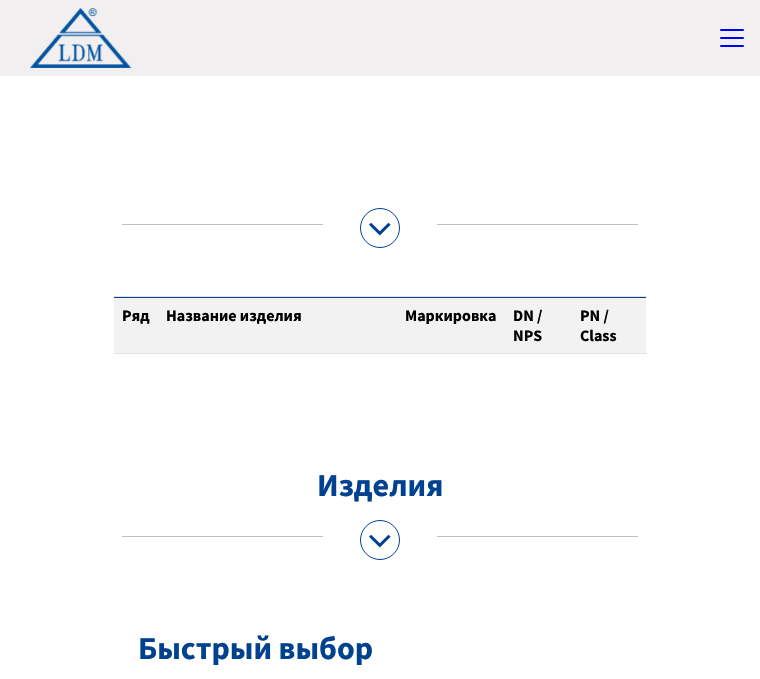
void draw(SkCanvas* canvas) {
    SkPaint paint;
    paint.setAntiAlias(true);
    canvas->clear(0xFFFFFFFF);
    paint.setColor(0xFFF1EFEF);
    canvas->drawRect(SkRect::MakeXYWH(0, 0, 760, 76), paint);
    canvas->drawImageRect(SkImages::DeferredFromEncodedData(SkData::MakeFromFileName("img1.png")), SkRect::MakeXYWH(30, 8, 102, 60), SkSamplingOptions());
    canvas->drawImageRect(SkImages::DeferredFromEncodedData(SkData::MakeFromFileName("img2.png")), SkRect::MakeXYWH(720, 29, 24, 18), SkSamplingOptions());
    paint.setColor(0xFFBFBFBF);
    canvas->drawRect(SkRect::MakeXYWH(122, 224, 201, 1), paint);
    canvas->drawImageRect(SkImages::DeferredFromEncodedData(SkData::MakeFromFileName("img3.png")), SkRect::MakeXYWH(360, 208, 40, 40), SkSamplingOptions());
    canvas->drawRect(SkRect::MakeXYWH(437, 224, 201, 1), paint);
    paint.setColor(0xFF004290);
    canvas->drawRect(SkRect::MakeXYWH(114, 297, 532, 1), paint);
    paint.setColor(0xFFF2F2F2);
    canvas->drawRect(SkRect::MakeXYWH(114, 298, 532, 55), paint);
    SkFont font1(fontMgr->matchFamilyStyle("Source Sans Pro", SkFontStyle::Bold()), 16);
    font1.setSubpixel(true);
    paint.setColor(0xFF000000);
    canvas->drawString("Ряд", 122, 321, font1, paint);
    canvas->drawString("Название изделия", 166, 321, font1, paint);
    canvas->drawString("Маркировка", 405, 321, font1, paint);
    canvas->drawString("DN /", 513, 321, font1, paint);
    canvas->drawString("NPS", 513, 341, font1, paint);
    paint.setColor(0xFFDEE2E6);
    canvas->drawRect(SkRect::MakeXYWH(114, 296, 533, 1), paint);
    canvas->drawRect(SkRect::MakeXYWH(114, 353, 533, 1), paint);
    paint.setColor(0xFF000000);
    canvas->drawString("PN /", 580, 321, font1, paint);
    canvas->drawString("Class", 580, 341, font1, paint);
    SkFont font2(fontMgr->matchFamilyStyle("Source Sans Pro", SkFontStyle::Bold()), 32);
    font2.setSubpixel(true);
    paint.setColor(0xFF004290);
    canvas->drawString("Изделия", 317, 496, font2, paint);
    paint.setColor(0xFFBFBFBF);
    canvas->drawRect(SkRect::MakeXYWH(122, 536, 201, 1), paint);
    canvas->drawImageRect(SkImages::DeferredFromEncodedData(SkData::MakeFromFileName("img3.png")), SkRect::MakeXYWH(360, 520, 40, 40), SkSamplingOptions());
    canvas->drawRect(SkRect::MakeXYWH(437, 536, 201, 1), paint);
    paint.setColor(0xFF004290);
    canvas->drawString("Быстрый выбор", 138, 659, font2, paint);
}
